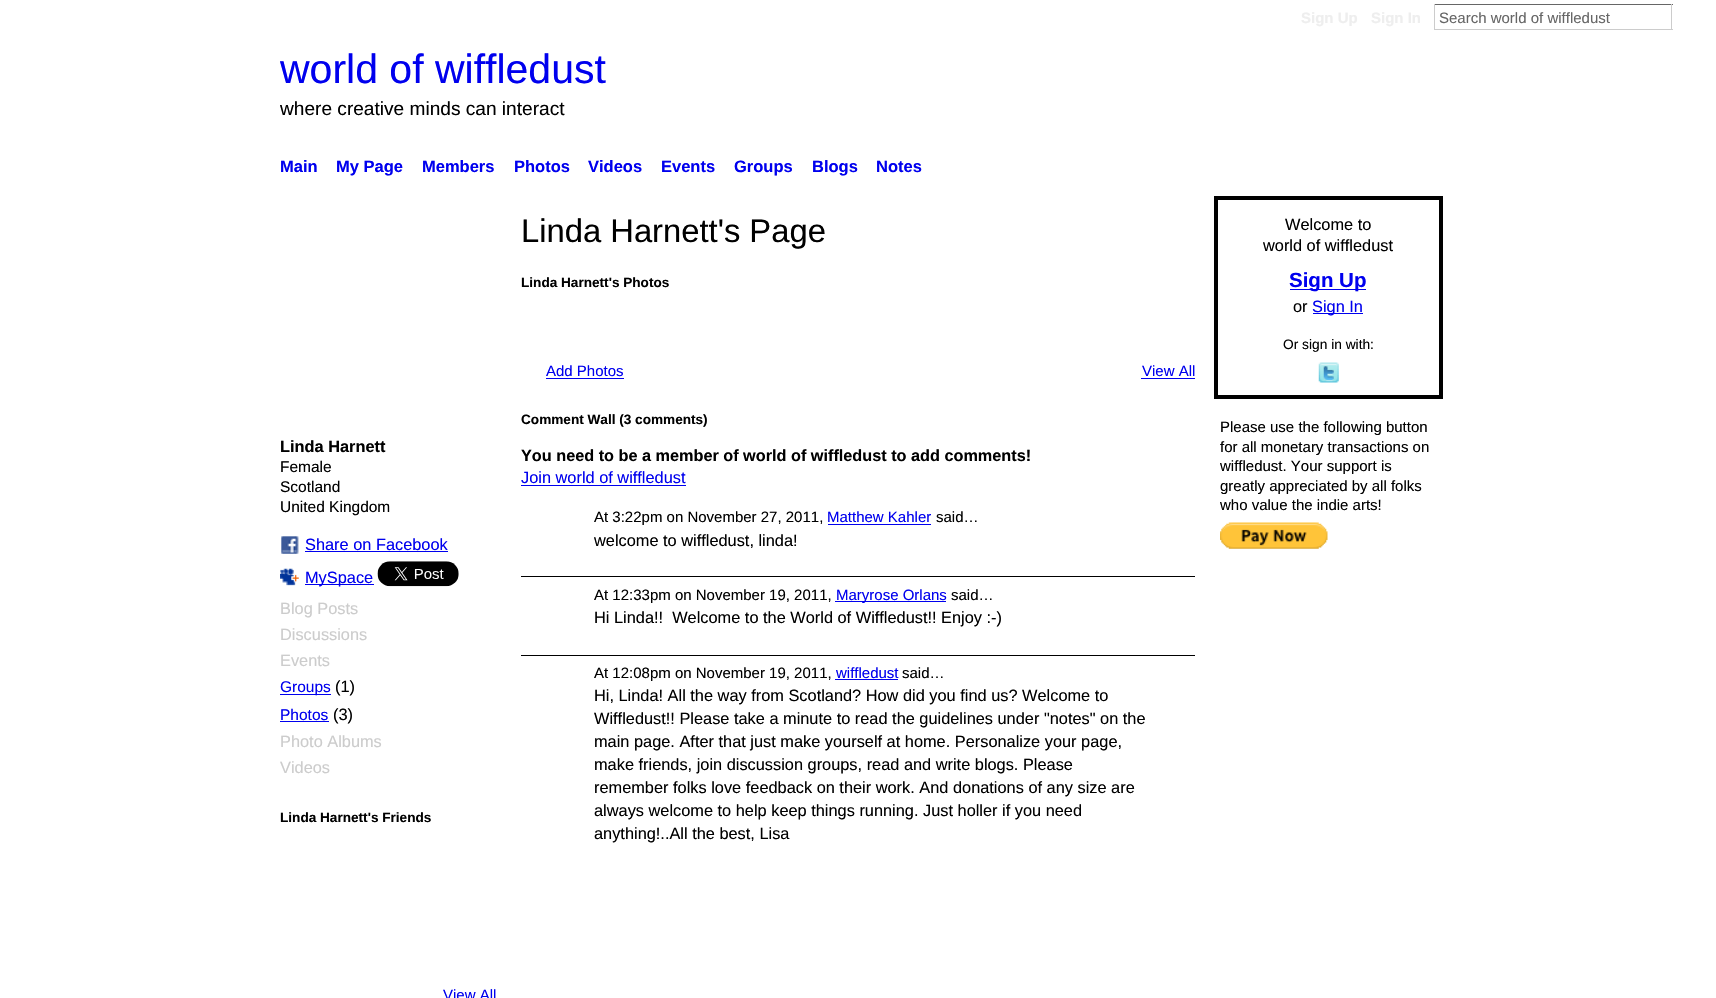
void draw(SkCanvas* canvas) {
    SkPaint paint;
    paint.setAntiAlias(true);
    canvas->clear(0xFFFFFFFF);
    SkFont font1(fontMgr->matchFamilyStyle("Liberation Sans", SkFontStyle::Bold()), 15);
    font1.setSubpixel(true);
    paint.setColor(0xFFEEEEEE);
    canvas->drawString("Sign Up", 1301, 23, font1, paint);
    canvas->drawString("Sign In", 1371, 23, font1, paint);
    paint.setColor(0xFF666666);
    canvas->drawRect(SkRect::MakeXYWH(1434, 4, 239, 1), paint);
    paint.setColor(0xFFCCCCCC);
    canvas->drawRect(SkRect::MakeXYWH(1671, 4, 1, 26), paint);
    canvas->drawRect(SkRect::MakeXYWH(1434, 29, 239, 1), paint);
    canvas->drawRect(SkRect::MakeXYWH(1434, 4, 1, 26), paint);
    SkFont font2(fontMgr->matchFamilyStyle("Liberation Sans", SkFontStyle::Normal()), 15);
    font2.setSubpixel(true);
    paint.setColor(0xFF666666);
    canvas->drawString("Search world of wiffledust", 1439, 23, font2, paint);
    SkFont font3(fontMgr->matchFamilyStyle("Liberation Sans", SkFontStyle::Normal()), 41);
    font3.setSubpixel(true);
    paint.setColor(0xFF0000EE);
    canvas->drawString("world of wiffledust", 280, 83, font3, paint);
    SkFont font4(fontMgr->matchFamilyStyle("Liberation Sans", SkFontStyle::Normal()), 19.1f);
    font4.setSubpixel(true);
    paint.setColor(0xFF000000);
    canvas->drawString("where creative minds can interact", 280, 115, font4, paint);
    SkFont font5(fontMgr->matchFamilyStyle("Liberation Sans", SkFontStyle::Bold()), 16.5f);
    font5.setSubpixel(true);
    paint.setColor(0xFF0000EE);
    canvas->drawString("Main", 280, 172, font5, paint);
    canvas->drawString("My Page", 336, 172, font5, paint);
    canvas->drawString("Members", 422, 172, font5, paint);
    canvas->drawString("Photos", 514, 172, font5, paint);
    canvas->drawString("Videos", 588, 172, font5, paint);
    canvas->drawString("Events", 661, 172, font5, paint);
    canvas->drawString("Groups", 734, 172, font5, paint);
    canvas->drawString("Blogs", 812, 172, font5, paint);
    canvas->drawString("Notes", 876, 172, font5, paint);
    SkFont font6(fontMgr->matchFamilyStyle("Liberation Sans", SkFontStyle::Bold()), 16.35f);
    font6.setSubpixel(true);
    paint.setColor(0xFF000000);
    canvas->drawString("Linda Harnett", 280, 452, font6, paint);
    SkFont font7(fontMgr->matchFamilyStyle("Liberation Sans", SkFontStyle::Normal()), 15.5f);
    font7.setSubpixel(true);
    canvas->drawString("Female", 280, 472, font7, paint);
    canvas->drawString("Scotland", 280, 492, font7, paint);
    canvas->drawString("United Kingdom", 280, 512, font7, paint);
    canvas->drawImageRect(SkImages::DeferredFromEncodedData(SkData::MakeFromFileName("img1.png")), SkRect::MakeXYWH(281, 536, 18, 18), SkSamplingOptions());
    SkFont font8(fontMgr->matchFamilyStyle("Liberation Sans", SkFontStyle::Normal()), 16.35f);
    font8.setSubpixel(true);
    paint.setColor(0xFF0000EE);
    canvas->drawString("Share on Facebook", 305, 550, font8, paint);
    canvas->drawRect(SkRect::MakeXYWH(305, 551, 143, 1), paint);
    canvas->drawImageRect(SkImages::DeferredFromEncodedData(SkData::MakeFromFileName("img2.png")), SkRect::MakeXYWH(280, 568, 19, 18), SkSamplingOptions());
    canvas->drawRect(SkRect::MakeXYWH(305, 584, 69, 1), paint);
    canvas->drawString("MySpace", 305, 583, font8, paint);
    canvas->drawImageRect(SkImages::DeferredFromEncodedData(SkData::MakeFromFileName("img3.png")), SkRect::MakeXYWH(377, 561, 82, 26), SkSamplingOptions());
    paint.setColor(0xFFCCCCCC);
    canvas->drawString("Blog Posts", 280, 614, font8, paint);
    canvas->drawString("Discussions", 280, 640, font8, paint);
    canvas->drawString("Events", 280, 666, font8, paint);
    paint.setColor(0xFF0000EE);
    canvas->drawRect(SkRect::MakeXYWH(280, 694, 51, 1), paint);
    canvas->drawString("Groups", 280, 692, font7, paint);
    paint.setColor(0xFF000000);
    canvas->drawString("(1)", 335, 692, font8, paint);
    paint.setColor(0xFF0000EE);
    canvas->drawString("Photos", 280, 720, font7, paint);
    canvas->drawRect(SkRect::MakeXYWH(280, 721, 49, 1), paint);
    paint.setColor(0xFF000000);
    canvas->drawString("(3)", 333, 720, font8, paint);
    paint.setColor(0xFFCCCCCC);
    canvas->drawString("Photo Albums", 280, 747, font8, paint);
    canvas->drawString("Videos", 280, 773, font8, paint);
    SkFont font9(fontMgr->matchFamilyStyle("Liberation Sans", SkFontStyle::Bold()), 13.6f);
    font9.setSubpixel(true);
    paint.setColor(0xFF000000);
    canvas->drawString("Linda Harnett's Friends", 280, 822, font9, paint);
    paint.setColor(0xFF0000EE);
    canvas->drawString("View All", 443, 1000, font2, paint);
    SkFont font10(fontMgr->matchFamilyStyle("Liberation Sans", SkFontStyle::Normal()), 32.75f);
    font10.setSubpixel(true);
    paint.setColor(0xFF000000);
    canvas->drawString("Linda Harnett's Page", 521, 242, font10, paint);
    canvas->drawString("Linda Harnett's Photos", 521, 287, font9, paint);
    paint.setColor(0xFF0000EE);
    canvas->drawString("Add Photos", 546, 376, font2, paint);
    canvas->drawRect(SkRect::MakeXYWH(546, 378, 78, 1), paint);
    canvas->drawString("View All", 1142, 376, font2, paint);
    canvas->drawRect(SkRect::MakeXYWH(1141, 378, 54, 1), paint);
    paint.setColor(0xFF000000);
    canvas->drawString("Comment Wall (3 comments)", 521, 424, font9, paint);
    SkFont font11(fontMgr->matchFamilyStyle("Liberation Sans", SkFontStyle::Bold()), 16.25f);
    font11.setSubpixel(true);
    canvas->drawString("You need to be a member of world of wiffledust to add comments!", 521, 461, font11, paint);
    paint.setColor(0xFF0000EE);
    canvas->drawString("Join world of wiffledust", 521, 483, font8, paint);
    canvas->drawRect(SkRect::MakeXYWH(521, 485, 165, 1), paint);
    paint.setColor(0xFF000000);
    canvas->drawRect(SkRect::MakeXYWH(521, 576, 674, 1), paint);
    canvas->drawString("At 3:22pm on November 27, 2011,", 594, 522, font2, paint);
    paint.setColor(0xFF0000EE);
    canvas->drawString("Matthew Kahler", 827, 522, font2, paint);
    canvas->drawRect(SkRect::MakeXYWH(828, 524, 103, 1), paint);
    paint.setColor(0xFF000000);
    canvas->drawString("said…", 936, 522, font2, paint);
    canvas->drawString("welcome to wiffledust, linda!", 594, 546, font8, paint);
    canvas->drawRect(SkRect::MakeXYWH(521, 655, 674, 1), paint);
    canvas->drawString("At 12:33pm on November 19, 2011,", 594, 600, font2, paint);
    paint.setColor(0xFF0000EE);
    canvas->drawRect(SkRect::MakeXYWH(835, 601, 111, 1), paint);
    canvas->drawString("Maryrose Orlans", 836, 600, font2, paint);
    paint.setColor(0xFF000000);
    canvas->drawString("said…", 951, 600, font2, paint);
    canvas->drawString("Hi Linda!!  Welcome to the World of Wiffledust!! Enjoy :-)", 594, 623, font8, paint);
    canvas->drawString("At 12:08pm on November 19, 2011,", 594, 678, font2, paint);
    paint.setColor(0xFF0000EE);
    canvas->drawString("wiffledust", 836, 678, font2, paint);
    canvas->drawRect(SkRect::MakeXYWH(835, 679, 63, 1), paint);
    paint.setColor(0xFF000000);
    canvas->drawString("said…", 902, 678, font2, paint);
    canvas->drawString("Hi, Linda! All the way from Scotland? How did you find us? Welcome to", 594, 701, font8, paint);
    canvas->drawString("Wiffledust!! Please take a minute to read the guidelines under \"notes\" on the", 594, 724, font8, paint);
    canvas->drawString("main page. After that just make yourself at home. Personalize your page,", 594, 747, font8, paint);
    canvas->drawString("make friends, join discussion groups, read and write blogs. Please", 594, 770, font8, paint);
    canvas->drawString("remember folks love feedback on their work. And donations of any size are", 594, 793, font8, paint);
    canvas->drawString("always welcome to help keep things running. Just holler if you need", 594, 816, font8, paint);
    canvas->drawString("anything!..All the best, Lisa", 594, 839, font8, paint);
    paint.setStyle(SkPaint::kStroke_Style);
    paint.setStrokeWidth(4);
    canvas->drawRect(SkRect::MakeXYWH(1216, 198, 225, 199), paint);
    paint.setStyle(SkPaint::kFill_Style);
    canvas->drawString("Welcome to", 1285, 230, font8, paint);
    canvas->drawString("world of wiffledust", 1263, 251, font8, paint);
    paint.setColor(0xFF0000EE);
    canvas->drawRect(SkRect::MakeXYWH(1290, 289, 76, 1), paint);
    SkFont font12(fontMgr->matchFamilyStyle("Liberation Sans", SkFontStyle::Bold()), 20.5f);
    font12.setSubpixel(true);
    canvas->drawString("Sign Up", 1289, 287, font12, paint);
    paint.setColor(0xFF000000);
    canvas->drawString("or", 1293, 312, font8, paint);
    paint.setColor(0xFF0000EE);
    canvas->drawRect(SkRect::MakeXYWH(1313, 313, 50, 1), paint);
    canvas->drawString("Sign In", 1312, 312, font8, paint);
    SkFont font13(fontMgr->matchFamilyStyle("Liberation Sans", SkFontStyle::Normal()), 13.75f);
    font13.setSubpixel(true);
    paint.setColor(0xFF000000);
    canvas->drawString("Or sign in with:", 1283, 349, font13, paint);
    canvas->drawImageRect(SkImages::DeferredFromEncodedData(SkData::MakeFromFileName("img4.png")), SkRect::MakeXYWH(1318, 362, 21, 21), SkSamplingOptions());
    canvas->drawString("Please use the following button", 1220, 432, font2, paint);
    canvas->drawString("for all monetary transactions on", 1220, 452, font2, paint);
    canvas->drawString("wiffledust. Your support is", 1220, 471, font2, paint);
    canvas->drawString("greatly appreciated by all folks", 1220, 491, font2, paint);
    canvas->drawString("who value the indie arts!", 1220, 510, font2, paint);
    canvas->drawImageRect(SkImages::DeferredFromEncodedData(SkData::MakeFromFileName("img5.png")), SkRect::MakeXYWH(1220, 522, 108, 27), SkSamplingOptions());
}
